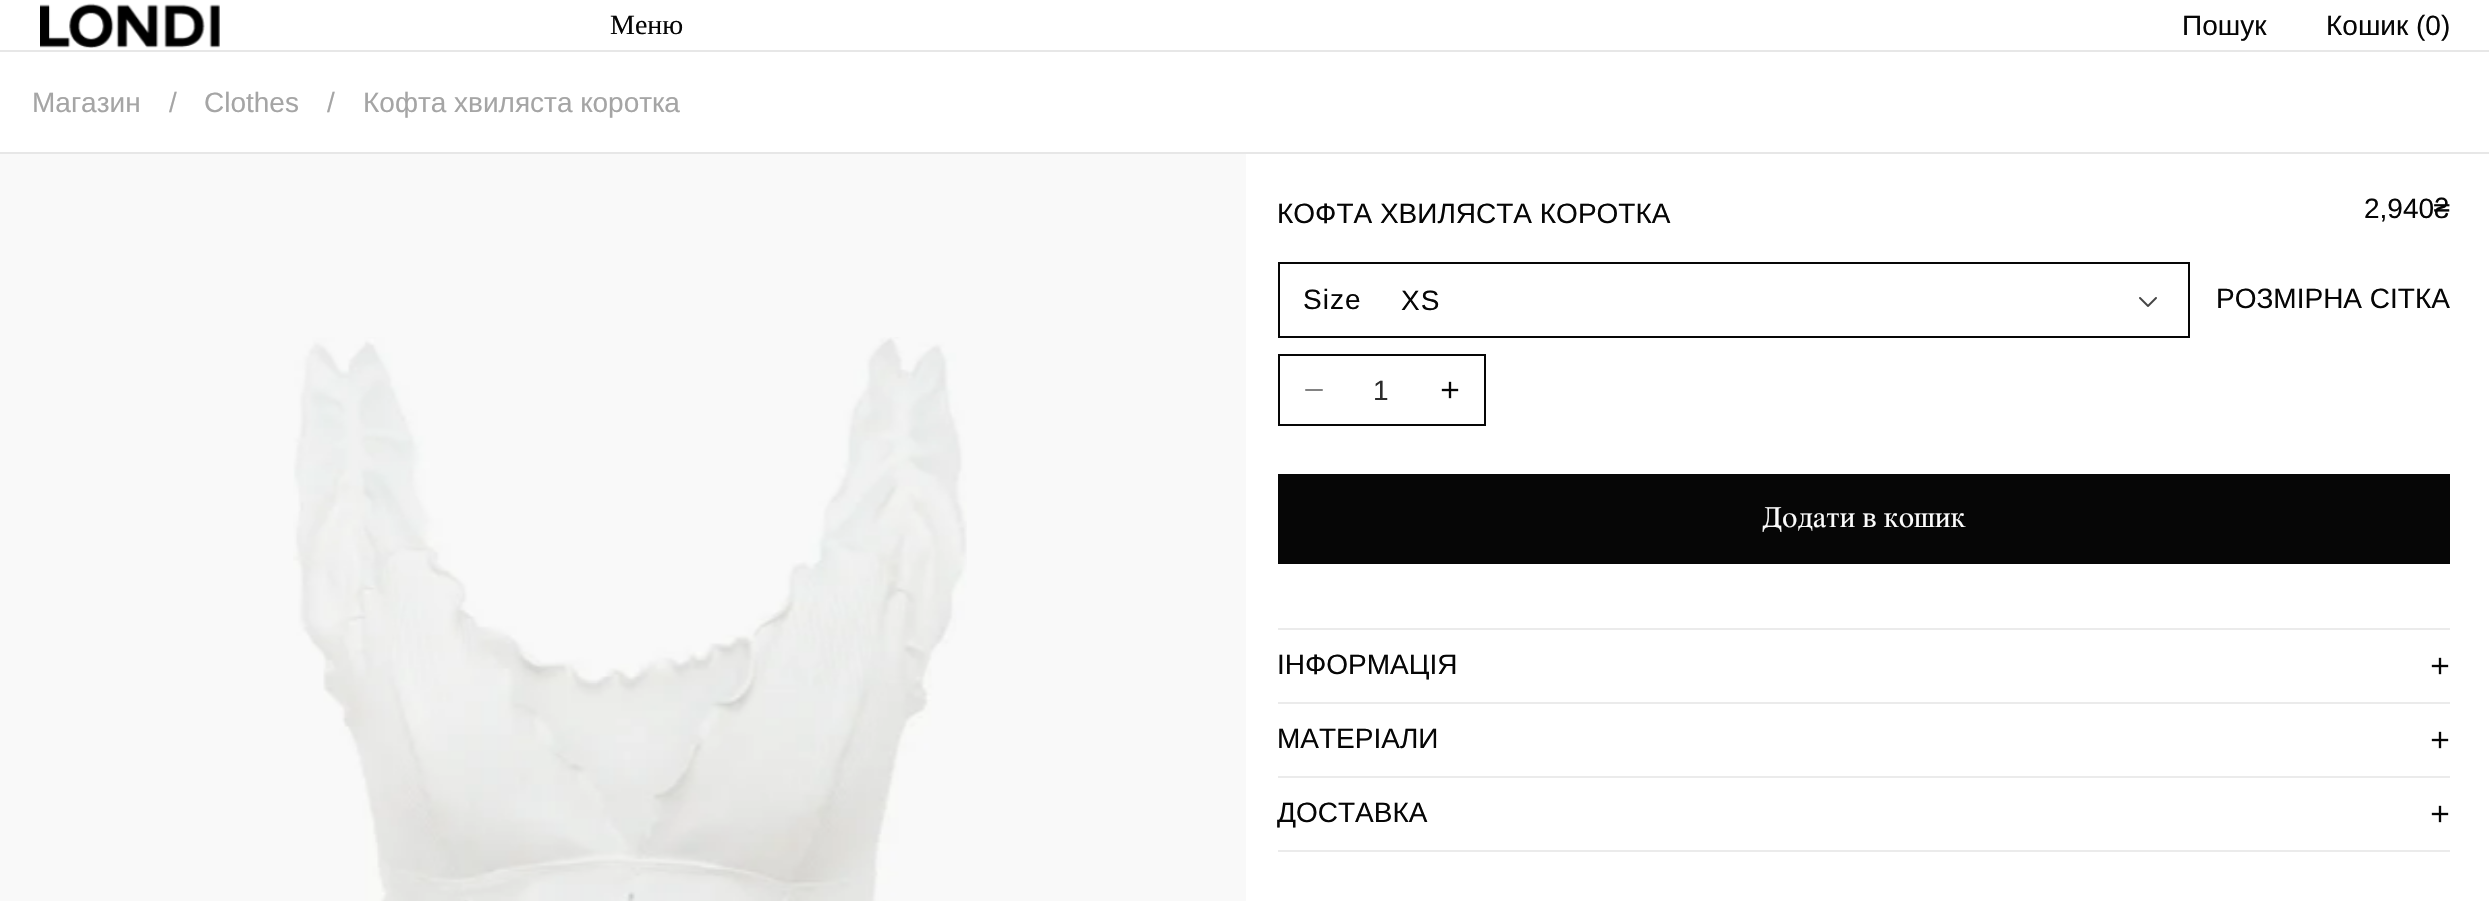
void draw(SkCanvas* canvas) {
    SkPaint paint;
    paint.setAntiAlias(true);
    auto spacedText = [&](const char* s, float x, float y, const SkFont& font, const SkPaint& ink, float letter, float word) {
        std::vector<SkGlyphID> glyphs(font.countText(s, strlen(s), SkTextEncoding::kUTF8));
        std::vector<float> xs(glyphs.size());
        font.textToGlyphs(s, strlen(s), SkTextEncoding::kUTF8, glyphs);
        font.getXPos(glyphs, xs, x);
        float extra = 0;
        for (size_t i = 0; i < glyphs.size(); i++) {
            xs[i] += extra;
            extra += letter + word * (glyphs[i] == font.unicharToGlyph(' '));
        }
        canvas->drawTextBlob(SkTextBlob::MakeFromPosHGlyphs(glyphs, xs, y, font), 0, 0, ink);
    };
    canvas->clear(0xFFFFFFFF);
    canvas->drawImageRect(SkImages::DeferredFromEncodedData(SkData::MakeFromFileName("img1.png")), SkRect::MakeXYWH(40, 3, 180, 45), SkSamplingOptions());
    SkFont font1(fontMgr->matchFamilyStyle("Liberation Serif", SkFontStyle::Normal()), 28);
    font1.setSubpixel(true);
    paint.setColor(0xFF060606);
    canvas->drawString("Меню", 610, 34, font1, paint);
    SkFont font2(fontMgr->matchFamilyStyle("Liberation Sans", SkFontStyle::Normal()), 28);
    font2.setSubpixel(true);
    canvas->drawString("Пошук", 2182, 35, font2, paint);
    canvas->drawString("Кошик (0)", 2326, 35, font2, paint);
    paint.setColor(0xFFE7E7E7);
    canvas->drawRect(SkRect::MakeXYWH(0, 50, 2489, 2), paint);
    canvas->drawRect(SkRect::MakeXYWH(0, 152, 2489, 2), paint);
    paint.setColor(0xFFA5A5A5);
    canvas->drawString("Магазин", 32, 112, font2, paint);
    canvas->drawString("/", 169, 112, font2, paint);
    canvas->drawString("Clothes", 204, 112, font2, paint);
    canvas->drawString("/", 327, 112, font2, paint);
    canvas->drawString("Кофта хвиляста коротка", 363, 112, font2, paint);
    paint.setColor(0xFFF9F9F9);
    canvas->drawRect(SkRect::MakeXYWH(0, 154, 1246, 747), paint);
    canvas->drawImageRect(SkImages::DeferredFromEncodedData(SkData::MakeFromFileName("img2.png")), SkRect::MakeXYWH(293, 337, 674, 564), SkSamplingOptions());
    paint.setColor(0xFF060606);
    canvas->drawString("КОФТА ХВИЛЯСТА КОРОТКА", 1277, 223, font2, paint);
    canvas->drawString("2,940₴", 2364, 218, font2, paint);
    paint.setStyle(SkPaint::kStroke_Style);
    paint.setStrokeWidth(2);
    canvas->drawRect(SkRect::MakeXYWH(1279, 263, 910, 74), paint);
    paint.setStyle(SkPaint::kFill_Style);
    spacedText("Size", 1303, 309, font2, paint, 1, 0);
    spacedText("XS", 1401, 310, font2, paint, 1, 0);
    canvas->drawImageRect(SkImages::DeferredFromEncodedData(SkData::MakeFromFileName("img3.png")), SkRect::MakeXYWH(2139, 297, 18, 10), SkSamplingOptions());
    canvas->drawString("РОЗМІРНА СІТКА", 2216, 308, font2, paint);
    paint.setStyle(SkPaint::kStroke_Style);
    canvas->drawRect(SkRect::MakeXYWH(1279, 355, 206, 70), paint);
    canvas->drawImageRect(SkImages::DeferredFromEncodedData(SkData::MakeFromFileName("img4.png")), SkRect::MakeXYWH(1305, 389, 18, 2), SkSamplingOptions());
    paint.setStyle(SkPaint::kFill_Style);
    paint.setColor(0xFF2B2B2B);
    canvas->drawString("1", 1373, 400, font2, paint);
    canvas->drawImageRect(SkImages::DeferredFromEncodedData(SkData::MakeFromFileName("img5.png")), SkRect::MakeXYWH(1441, 381, 18, 18), SkSamplingOptions());
    paint.setColor(0xFF060606);
    canvas->drawRect(SkRect::MakeXYWH(1278, 474, 1172, 90), paint);
    SkFont font3(fontMgr->matchFamilyStyle("TeX Gyre Termes", SkFontStyle::Normal()), 30);
    font3.setSubpixel(true);
    paint.setColor(0xFFFBFBFB);
    canvas->drawString("Додати в кошик", 1762, 527, font3, paint);
    paint.setColor(0xFFEBEBEB);
    canvas->drawRect(SkRect::MakeXYWH(1278, 628, 1172, 2), paint);
    canvas->drawRect(SkRect::MakeXYWH(1278, 702, 1172, 2), paint);
    paint.setColor(0xFF060606);
    canvas->drawString("ІНФОРМАЦІЯ", 1277, 674, font2, paint);
    canvas->drawImageRect(SkImages::DeferredFromEncodedData(SkData::MakeFromFileName("img5.png")), SkRect::MakeXYWH(2431, 657, 18, 18), SkSamplingOptions());
    paint.setColor(0xFFEBEBEB);
    canvas->drawRect(SkRect::MakeXYWH(1278, 776, 1172, 2), paint);
    paint.setColor(0xFF060606);
    canvas->drawString("МАТЕРІАЛИ", 1277, 748, font2, paint);
    canvas->drawImageRect(SkImages::DeferredFromEncodedData(SkData::MakeFromFileName("img5.png")), SkRect::MakeXYWH(2431, 731, 18, 18), SkSamplingOptions());
    paint.setColor(0xFFEBEBEB);
    canvas->drawRect(SkRect::MakeXYWH(1278, 850, 1172, 2), paint);
    paint.setColor(0xFF060606);
    canvas->drawString("ДОСТАВКА", 1277, 822, font2, paint);
    canvas->drawImageRect(SkImages::DeferredFromEncodedData(SkData::MakeFromFileName("img5.png")), SkRect::MakeXYWH(2431, 805, 18, 18), SkSamplingOptions());
}
